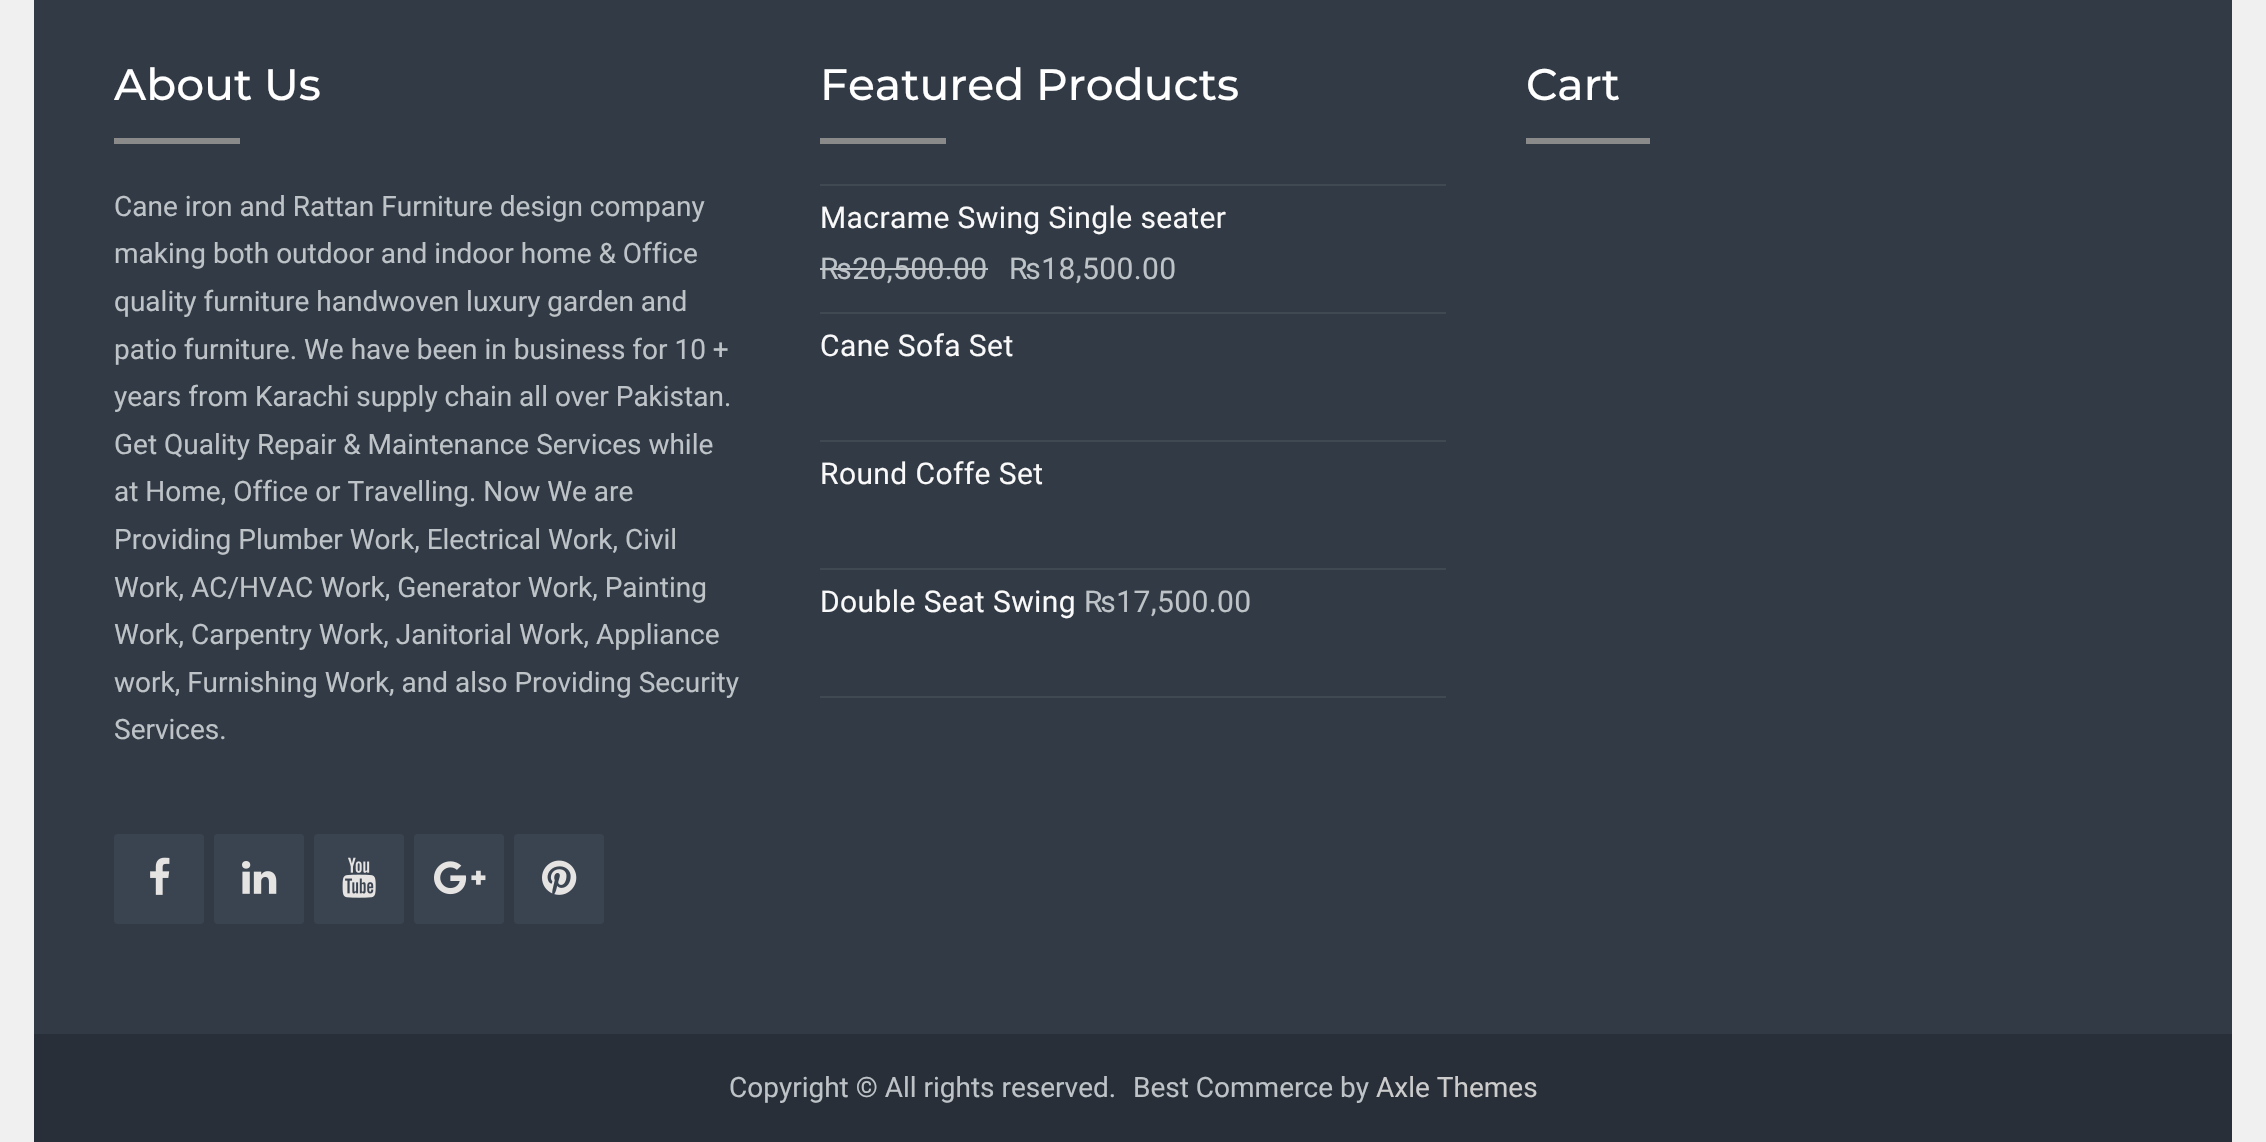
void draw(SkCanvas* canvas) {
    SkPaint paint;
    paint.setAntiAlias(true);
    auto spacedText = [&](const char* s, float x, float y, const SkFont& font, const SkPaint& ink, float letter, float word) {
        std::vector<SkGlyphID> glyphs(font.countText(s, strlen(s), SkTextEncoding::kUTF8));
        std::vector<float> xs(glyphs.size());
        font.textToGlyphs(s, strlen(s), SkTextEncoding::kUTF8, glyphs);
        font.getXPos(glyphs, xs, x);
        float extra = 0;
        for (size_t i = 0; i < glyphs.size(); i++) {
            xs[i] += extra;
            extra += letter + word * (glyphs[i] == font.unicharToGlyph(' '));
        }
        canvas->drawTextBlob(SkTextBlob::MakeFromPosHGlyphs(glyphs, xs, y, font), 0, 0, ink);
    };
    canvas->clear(0xFFF1F0F0);
    paint.setColor(0xFF323A45);
    canvas->drawRect(SkRect::MakeXYWH(34, 0, 2198, 1034), paint);
    SkFont font1(fontMgr->matchFamilyStyle("Montserrat", SkFontStyle(500, SkFontStyle::kNormal_Width, SkFontStyle::kUpright_Slant)), 44);
    font1.setSubpixel(true);
    paint.setColor(0xFFFFFFFF);
    canvas->drawString("About Us", 114, 100, font1, paint);
    paint.setColor(0xFF8A8A8A);
    canvas->drawRect(SkRect::MakeXYWH(114, 138, 126, 6), paint);
    SkFont font2(fontMgr->matchFamilyStyle("Roboto", SkFontStyle::Normal()), 28);
    font2.setSubpixel(true);
    paint.setColor(0xFFBDC3C7);
    canvas->drawString("Cane iron and Rattan Furniture design company", 114, 216, font2, paint);
    canvas->drawString("making both outdoor and indoor home & Office", 114, 263, font2, paint);
    canvas->drawString("quality furniture handwoven luxury garden and", 114, 311, font2, paint);
    canvas->drawString("patio furniture. We have been in business for 10 +", 114, 359, font2, paint);
    canvas->drawString("years from Karachi supply chain all over Pakistan.", 114, 406, font2, paint);
    canvas->drawString("Get Quality Repair & Maintenance Services while", 114, 454, font2, paint);
    canvas->drawString("at Home, Office or Travelling. Now We are", 114, 501, font2, paint);
    canvas->drawString("Providing Plumber Work, Electrical Work, Civil", 114, 549, font2, paint);
    canvas->drawString("Work, AC/HVAC Work, Generator Work, Painting", 114, 597, font2, paint);
    canvas->drawString("Work, Carpentry Work, Janitorial Work, Appliance", 114, 644, font2, paint);
    canvas->drawString("work, Furnishing Work, and also Providing Security", 114, 692, font2, paint);
    canvas->drawString("Services.", 114, 739, font2, paint);
    paint.setColor(0xFF3A4450);
    canvas->drawRoundRect(SkRect::MakeXYWH(114, 834, 90, 90), 4, 4, paint);
    canvas->drawImageRect(SkImages::DeferredFromEncodedData(SkData::MakeFromFileName("img1.png")), SkRect::MakeXYWH(150, 857, 20, 38), SkSamplingOptions());
    canvas->drawRoundRect(SkRect::MakeXYWH(214, 834, 90, 90), 4, 4, paint);
    canvas->drawImageRect(SkImages::DeferredFromEncodedData(SkData::MakeFromFileName("img2.png")), SkRect::MakeXYWH(242, 861, 35, 33), SkSamplingOptions());
    canvas->drawRoundRect(SkRect::MakeXYWH(314, 834, 90, 90), 4, 4, paint);
    canvas->drawImageRect(SkImages::DeferredFromEncodedData(SkData::MakeFromFileName("img3.png")), SkRect::MakeXYWH(342, 857, 34, 41), SkSamplingOptions());
    canvas->drawRoundRect(SkRect::MakeXYWH(414, 834, 90, 90), 4, 4, paint);
    canvas->drawImageRect(SkImages::DeferredFromEncodedData(SkData::MakeFromFileName("img4.png")), SkRect::MakeXYWH(434, 861, 52, 34), SkSamplingOptions());
    canvas->drawRoundRect(SkRect::MakeXYWH(514, 834, 90, 90), 4, 4, paint);
    canvas->drawImageRect(SkImages::DeferredFromEncodedData(SkData::MakeFromFileName("img5.png")), SkRect::MakeXYWH(542, 860, 35, 35), SkSamplingOptions());
    paint.setColor(0xFFFFFFFF);
    canvas->drawString("Featured Products", 820, 100, font1, paint);
    paint.setColor(0xFF8A8A8A);
    canvas->drawRect(SkRect::MakeXYWH(820, 138, 126, 6), paint);
    paint.setColor(0xFF404852);
    canvas->drawRect(SkRect::MakeXYWH(820, 184, 626, 2), paint);
    SkFont font3(fontMgr->matchFamilyStyle("Roboto", SkFontStyle::Normal()), 30);
    font3.setSubpixel(true);
    paint.setColor(0xFFF9F9F9);
    spacedText("Macrame Swing Single seater", 820, 228, font3, paint, 0.4f, 0);
    paint.setColor(0xFFBDC3C7);
    spacedText("₨20,500.00", 820, 279, font3, paint, 0.4f, 0);
    canvas->drawRect(SkRect::MakeXYWH(820, 268, 168, 2), paint);
    spacedText("₨18,500.00", 1009, 279, font3, paint, 0.4f, 0);
    paint.setColor(0xFF404852);
    canvas->drawRect(SkRect::MakeXYWH(820, 312, 626, 2), paint);
    paint.setColor(0xFFF9F9F9);
    spacedText("Cane Sofa Set", 820, 356, font3, paint, 0.4f, 0);
    paint.setColor(0xFF404852);
    canvas->drawRect(SkRect::MakeXYWH(820, 440, 626, 2), paint);
    paint.setColor(0xFFF9F9F9);
    spacedText("Round Coffe Set", 820, 484, font3, paint, 0.4f, 0);
    paint.setColor(0xFF404852);
    canvas->drawRect(SkRect::MakeXYWH(820, 568, 626, 2), paint);
    canvas->drawRect(SkRect::MakeXYWH(820, 696, 626, 2), paint);
    paint.setColor(0xFFF9F9F9);
    spacedText("Double Seat Swing", 820, 612, font3, paint, 0.4f, 0);
    paint.setColor(0xFFBDC3C7);
    spacedText("₨17,500.00", 1084, 612, font3, paint, 0.4f, 0);
    paint.setColor(0xFFFFFFFF);
    canvas->drawString("Cart", 1526, 100, font1, paint);
    paint.setColor(0xFF8A8A8A);
    canvas->drawRect(SkRect::MakeXYWH(1526, 138, 124, 6), paint);
    paint.setColor(0xFF292F38);
    canvas->drawRect(SkRect::MakeXYWH(34, 1034, 2198, 108), paint);
    paint.setColor(0xFFBDC3C7);
    canvas->drawString("Copyright © All rights reserved.", 729, 1097, font2, paint);
    canvas->drawString("Best Commerce by", 1133, 1097, font2, paint);
    paint.setColor(0xFFCCCCCC);
    canvas->drawString("Axle Themes", 1376, 1097, font2, paint);
}
